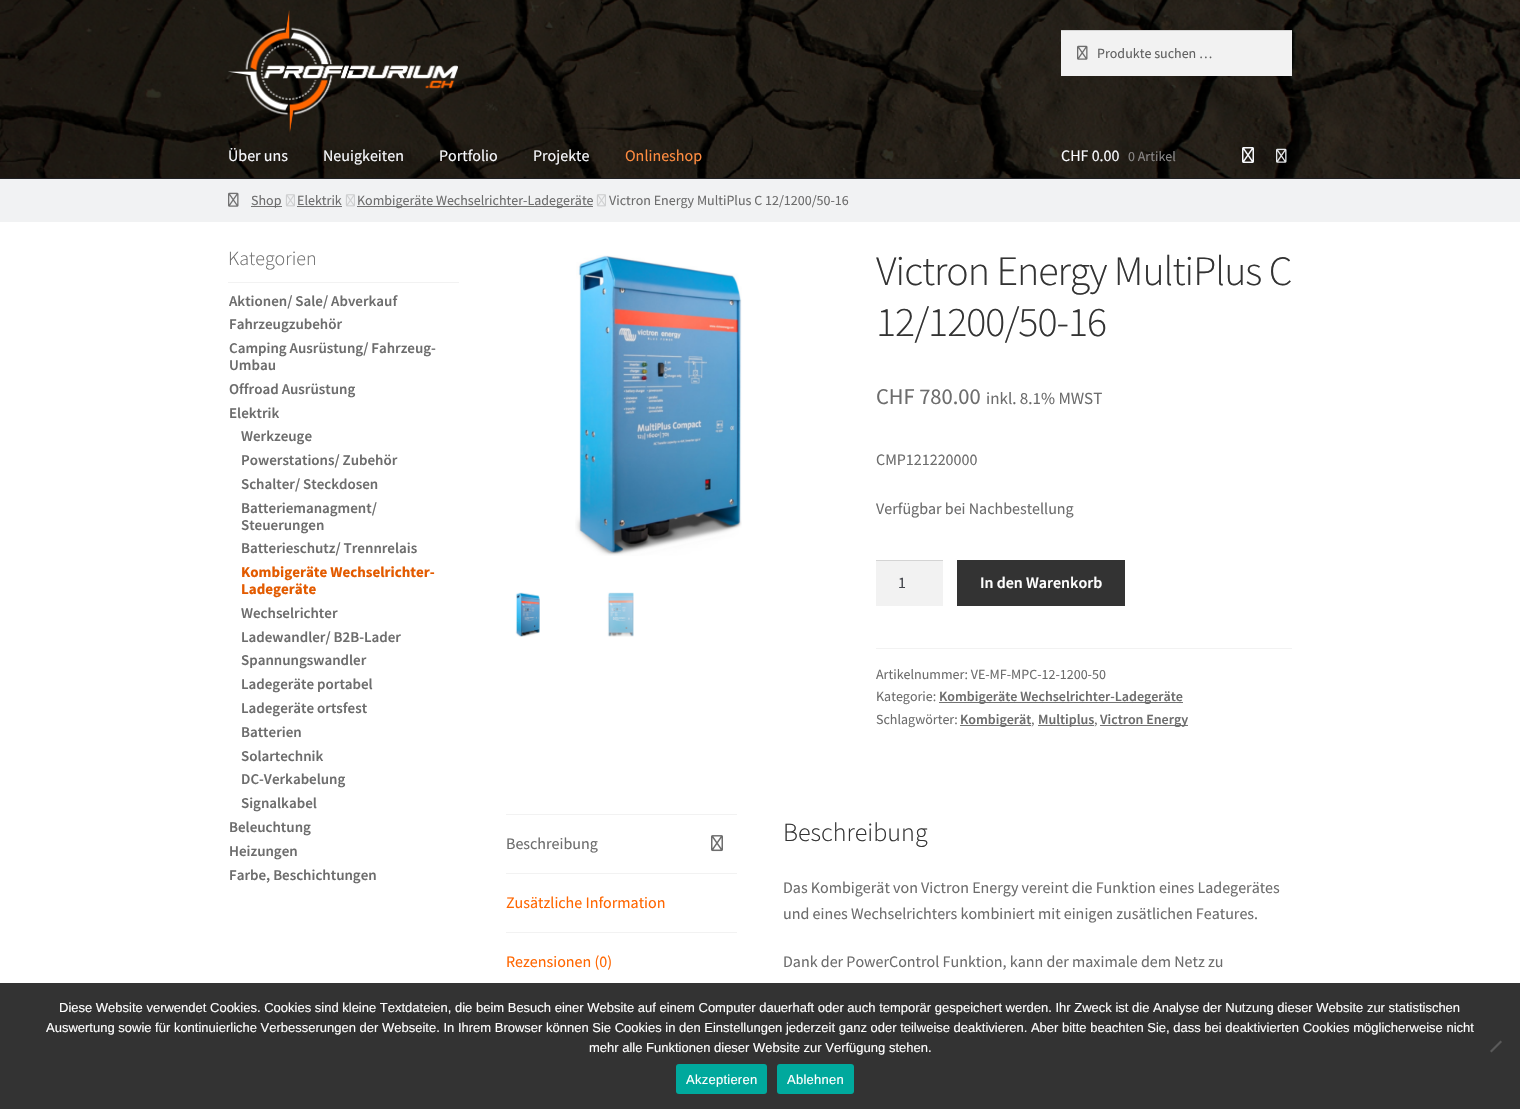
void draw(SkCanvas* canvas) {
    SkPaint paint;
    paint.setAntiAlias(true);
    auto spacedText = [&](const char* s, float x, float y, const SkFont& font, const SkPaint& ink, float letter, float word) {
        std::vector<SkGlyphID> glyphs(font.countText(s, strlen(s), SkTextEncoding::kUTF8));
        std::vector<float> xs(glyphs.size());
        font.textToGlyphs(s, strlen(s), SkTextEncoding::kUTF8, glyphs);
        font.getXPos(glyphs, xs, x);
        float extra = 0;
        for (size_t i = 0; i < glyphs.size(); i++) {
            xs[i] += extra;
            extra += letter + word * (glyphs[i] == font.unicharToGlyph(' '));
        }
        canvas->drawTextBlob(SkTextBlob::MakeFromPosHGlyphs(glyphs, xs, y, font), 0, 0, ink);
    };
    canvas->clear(0xFFFFFFFF);
    canvas->drawImageRect(SkImages::DeferredFromEncodedData(SkData::MakeFromFileName("img1.png")), SkRect::MakeXYWH(0, 0, 1520, 178), SkSamplingOptions());
    paint.setColor(0xFF1E1F24);
    canvas->drawRect(SkRect::MakeXYWH(0, 178, 1520, 1), paint);
    canvas->drawImageRect(SkImages::DeferredFromEncodedData(SkData::MakeFromFileName("img2.png")), SkRect::MakeXYWH(228, 10, 230, 123), SkSamplingOptions());
    paint.setColor(0xFFF2F2F2);
    canvas->drawRect(SkRect::MakeXYWH(1061, 31, 231, 45), paint);
    canvas->drawImageRect(SkImages::DeferredFromEncodedData(SkData::MakeFromFileName("img3.png")), SkRect::MakeXYWH(1077, 45, 11, 15), SkSamplingOptions());
    paint.setColor(0xFFD4D4D4);
    canvas->drawRect(SkRect::MakeXYWH(1061, 30, 231, 1), paint);
    SkFont font1(fontMgr->matchFamilyStyle("Source Sans Pro", SkFontStyle::Normal()), 14);
    font1.setSubpixel(true);
    paint.setColor(0xFF616161);
    canvas->drawString("Produkte suchen …", 1097, 58, font1, paint);
    SkFont font2(fontMgr->matchFamilyStyle("Source Sans Pro", SkFontStyle::Normal()), 16);
    font2.setSubpixel(true);
    paint.setColor(0xFFF8F9FD);
    canvas->drawString("Über uns", 228, 161, font2, paint);
    canvas->drawString("Neuigkeiten", 323, 161, font2, paint);
    canvas->drawString("Portfolio", 439, 161, font2, paint);
    canvas->drawString("Projekte", 533, 161, font2, paint);
    paint.setColor(0xFFFF8C40);
    canvas->drawString("Onlineshop", 625, 161, font2, paint);
    paint.setColor(0xFFF8F9FD);
    canvas->drawString("CHF 0.00", 1061, 161, font2, paint);
    paint.setColor(0xFF898787);
    canvas->drawString("0 Artikel", 1128, 161, font1, paint);
    canvas->drawImageRect(SkImages::DeferredFromEncodedData(SkData::MakeFromFileName("img4.png")), SkRect::MakeXYWH(1242, 147, 12, 16), SkSamplingOptions());
    canvas->drawImageRect(SkImages::DeferredFromEncodedData(SkData::MakeFromFileName("img5.png")), SkRect::MakeXYWH(1276, 148, 11, 15), SkSamplingOptions());
    paint.setColor(0xFFF1F2F3);
    canvas->drawRect(SkRect::MakeXYWH(0, 179, 1520, 43), paint);
    canvas->drawImageRect(SkImages::DeferredFromEncodedData(SkData::MakeFromFileName("img6.png")), SkRect::MakeXYWH(228, 192, 11, 15), SkSamplingOptions());
    paint.setColor(0xFF727272);
    canvas->drawRect(SkRect::MakeXYWH(251, 206, 31, 1), paint);
    paint.setColor(0xFF6D6D6D);
    canvas->drawString("Shop", 251, 205, font1, paint);
    canvas->drawImageRect(SkImages::DeferredFromEncodedData(SkData::MakeFromFileName("img7.png")), SkRect::MakeXYWH(285, 194, 10, 13), SkSamplingOptions());
    canvas->drawString("Elektrik", 297, 205, font1, paint);
    paint.setColor(0xFF727272);
    canvas->drawRect(SkRect::MakeXYWH(297, 206, 45, 1), paint);
    canvas->drawImageRect(SkImages::DeferredFromEncodedData(SkData::MakeFromFileName("img7.png")), SkRect::MakeXYWH(345, 194, 10, 13), SkSamplingOptions());
    canvas->drawRect(SkRect::MakeXYWH(357, 206, 236, 1), paint);
    paint.setColor(0xFF6D6D6D);
    canvas->drawString("Kombigeräte Wechselrichter-Ladegeräte", 357, 205, font1, paint);
    canvas->drawImageRect(SkImages::DeferredFromEncodedData(SkData::MakeFromFileName("img7.png")), SkRect::MakeXYWH(596, 194, 10, 13), SkSamplingOptions());
    canvas->drawString("Victron Energy MultiPlus C 12/1200/50-16", 609, 205, font1, paint);
    paint.setColor(0xFFF2F2F2);
    canvas->drawRect(SkRect::MakeXYWH(228, 282, 231, 1), paint);
    SkFont font3(fontMgr->matchFamilyStyle("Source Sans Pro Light", SkFontStyle(300, SkFontStyle::kNormal_Width, SkFontStyle::kUpright_Slant)), 20);
    font3.setSubpixel(true);
    paint.setColor(0xFF6D6D6D);
    canvas->drawString("Kategorien", 228, 265, font3, paint);
    SkFont font4(fontMgr->matchFamilyStyle("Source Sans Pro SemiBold", SkFontStyle(600, SkFontStyle::kNormal_Width, SkFontStyle::kUpright_Slant)), 15);
    font4.setSubpixel(true);
    canvas->drawString("Aktionen/ Sale/ Abverkauf", 229, 306, font4, paint);
    canvas->drawString("Fahrzeugzubehör", 229, 329, font4, paint);
    canvas->drawString("Camping Ausrüstung/ Fahrzeug-", 229, 353, font4, paint);
    canvas->drawString("Umbau", 229, 370, font4, paint);
    canvas->drawString("Offroad Ausrüstung", 229, 394, font4, paint);
    canvas->drawString("Elektrik", 229, 418, font4, paint);
    canvas->drawString("Werkzeuge", 241, 441, font4, paint);
    canvas->drawString("Powerstations/ Zubehör", 241, 465, font4, paint);
    canvas->drawString("Schalter/ Steckdosen", 241, 489, font4, paint);
    canvas->drawString("Batteriemanagment/", 241, 513, font4, paint);
    canvas->drawString("Steuerungen", 241, 530, font4, paint);
    canvas->drawString("Batterieschutz/ Trennrelais", 241, 553, font4, paint);
    SkFont font5(fontMgr->matchFamilyStyle("Source Sans Pro", SkFontStyle::Bold()), 15);
    font5.setSubpixel(true);
    paint.setColor(0xFFE35B00);
    canvas->drawString("Kombigeräte Wechselrichter-", 241, 577, font5, paint);
    canvas->drawString("Ladegeräte", 241, 594, font5, paint);
    paint.setColor(0xFF6D6D6D);
    canvas->drawString("Wechselrichter", 241, 618, font4, paint);
    canvas->drawString("Ladewandler/ B2B-Lader", 241, 642, font4, paint);
    canvas->drawString("Spannungswandler", 241, 665, font4, paint);
    canvas->drawString("Ladegeräte portabel", 241, 689, font4, paint);
    canvas->drawString("Ladegeräte ortsfest", 241, 713, font4, paint);
    canvas->drawString("Batterien", 241, 737, font4, paint);
    canvas->drawString("Solartechnik", 241, 761, font4, paint);
    canvas->drawString("DC-Verkabelung", 241, 784, font4, paint);
    canvas->drawString("Signalkabel", 241, 808, font4, paint);
    canvas->drawString("Beleuchtung", 229, 832, font4, paint);
    canvas->drawString("Heizungen", 229, 856, font4, paint);
    canvas->drawString("Farbe, Beschichtungen", 229, 880, font4, paint);
    canvas->drawImageRect(SkImages::DeferredFromEncodedData(SkData::MakeFromFileName("img8.png")), SkRect::MakeXYWH(575, 255, 167, 301), SkSamplingOptions());
    canvas->drawImageRect(SkImages::DeferredFromEncodedData(SkData::MakeFromFileName("img9.png")), SkRect::MakeXYWH(515, 592, 25, 45), SkSamplingOptions());
    canvas->drawImageRect(SkImages::DeferredFromEncodedData(SkData::MakeFromFileName("img10.png")), SkRect::MakeXYWH(607, 592, 27, 45), SkSamplingOptions());
    SkFont font6(fontMgr->matchFamilyStyle("Source Sans Pro Light", SkFontStyle(300, SkFontStyle::kNormal_Width, SkFontStyle::kUpright_Slant)), 41.9f);
    font6.setSubpixel(true);
    paint.setColor(0xFF333333);
    spacedText("Victron Energy MultiPlus C", 876, 285, font6, paint, -1, 0);
    spacedText("12/1200/50-16", 876, 336, font6, paint, -1, 0);
    SkFont font7(fontMgr->matchFamilyStyle("Source Sans Pro", SkFontStyle::Normal()), 22.5f);
    font7.setSubpixel(true);
    paint.setColor(0xFF6D6D6D);
    canvas->drawString("CHF 780.00", 876, 404, font7, paint);
    SkFont font8(fontMgr->matchFamilyStyle("Source Sans Pro", SkFontStyle::Normal()), 17);
    font8.setSubpixel(true);
    canvas->drawString("inkl. 8.1% MWST", 986, 404, font8, paint);
    canvas->drawString("CMP121220000", 876, 465, font2, paint);
    canvas->drawString("Verfügbar bei Nachbestellung", 876, 514, font2, paint);
    paint.setColor(0xFFF2F2F2);
    canvas->drawRect(SkRect::MakeXYWH(876, 561, 67, 45), paint);
    paint.setColor(0xFFD4D4D4);
    canvas->drawRect(SkRect::MakeXYWH(876, 560, 67, 1), paint);
    paint.setColor(0xFF43454B);
    canvas->drawString("1", 898, 588, font2, paint);
    paint.setColor(0xFF333333);
    canvas->drawRect(SkRect::MakeXYWH(957, 560, 168, 46), paint);
    SkFont font9(fontMgr->matchFamilyStyle("Source Sans Pro SemiBold", SkFontStyle(600, SkFontStyle::kNormal_Width, SkFontStyle::kUpright_Slant)), 16);
    font9.setSubpixel(true);
    paint.setColor(0xFFFFFFFF);
    canvas->drawString("In den Warenkorb", 980, 588, font9, paint);
    paint.setColor(0xFFF2F2F2);
    canvas->drawRect(SkRect::MakeXYWH(876, 648, 416, 1), paint);
    paint.setColor(0xFF6D6D6D);
    canvas->drawString("Artikelnummer: VE-MF-MPC-12-1200-50", 876, 679, font1, paint);
    canvas->drawString("Kategorie:", 876, 701, font1, paint);
    paint.setColor(0xFF727272);
    canvas->drawRect(SkRect::MakeXYWH(939, 702, 244, 1), paint);
    SkFont font10(fontMgr->matchFamilyStyle("Source Sans Pro SemiBold", SkFontStyle(600, SkFontStyle::kNormal_Width, SkFontStyle::kUpright_Slant)), 14);
    font10.setSubpixel(true);
    paint.setColor(0xFF6D6D6D);
    canvas->drawString("Kombigeräte Wechselrichter-Ladegeräte", 939, 701, font10, paint);
    canvas->drawString("Schlagwörter:", 876, 724, font1, paint);
    paint.setColor(0xFF727272);
    canvas->drawRect(SkRect::MakeXYWH(960, 725, 71, 1), paint);
    paint.setColor(0xFF6D6D6D);
    canvas->drawString("Kombigerät", 960, 724, font10, paint);
    canvas->drawString(",", 1031, 724, font1, paint);
    paint.setColor(0xFF727272);
    canvas->drawRect(SkRect::MakeXYWH(1038, 725, 56, 1), paint);
    paint.setColor(0xFF6D6D6D);
    canvas->drawString("Multiplus", 1038, 724, font10, paint);
    canvas->drawString(",", 1094, 724, font1, paint);
    paint.setColor(0xFF727272);
    canvas->drawRect(SkRect::MakeXYWH(1100, 725, 88, 1), paint);
    paint.setColor(0xFF6D6D6D);
    canvas->drawString("Victron Energy", 1100, 724, font10, paint);
    paint.setColor(0xFFF2F2F2);
    canvas->drawRect(SkRect::MakeXYWH(506, 814, 231, 1), paint);
    canvas->drawRect(SkRect::MakeXYWH(506, 873, 231, 1), paint);
    paint.setColor(0xFF6D6D6D);
    canvas->drawString("Beschreibung", 506, 849, font2, paint);
    canvas->drawImageRect(SkImages::DeferredFromEncodedData(SkData::MakeFromFileName("img11.png")), SkRect::MakeXYWH(711, 835, 12, 17), SkSamplingOptions());
    paint.setColor(0xFFF2F2F2);
    canvas->drawRect(SkRect::MakeXYWH(506, 932, 231, 1), paint);
    paint.setColor(0xFFFF6600);
    canvas->drawString("Zusätzliche Information", 506, 908, font2, paint);
    canvas->drawString("Rezensionen (0)", 506, 967, font2, paint);
    SkFont font11(fontMgr->matchFamilyStyle("Source Sans Pro Light", SkFontStyle(300, SkFontStyle::kNormal_Width, SkFontStyle::kUpright_Slant)), 26);
    font11.setSubpixel(true);
    paint.setColor(0xFF333333);
    canvas->drawString("Beschreibung", 783, 841, font11, paint);
    paint.setColor(0xFF6D6D6D);
    canvas->drawString("Das Kombigerät von Victron Energy vereint die Funktion eines Ladegerätes", 783, 893, font2, paint);
    canvas->drawString("und eines Wechselrichters kombiniert mit einigen zusätlichen Features.", 783, 919, font2, paint);
    canvas->drawString("Dank der PowerControl Funktion, kann der maximale dem Netz zu", 783, 967, font2, paint);
    paint.setColor(0xFF333333);
    canvas->drawRect(SkRect::MakeXYWH(0, 983, 1520, 126), paint);
    SkFont font12(fontMgr->matchFamilyStyle("Liberation Sans", SkFontStyle::Normal()), 13);
    font12.setSubpixel(true);
    paint.setColor(0xFFFFFFFF);
    canvas->drawString("Diese Website verwendet Cookies. Cookies sind kleine Textdateien, die beim Besuch einer Website auf einem Computer dauerhaft oder auch temporär gespeichert werden. Ihr Zweck ist die Analyse der Nutzung dieser Website zur statistischen", 59, 1012, font12, paint);
    canvas->drawString("Auswertung sowie für kontinuierliche Verbesserungen der Webseite. In Ihrem Browser können Sie Cookies in den Einstellungen jederzeit ganz oder teilweise deaktivieren. Aber bitte beachten Sie, dass bei deaktivierten Cookies möglicherweise nicht", 46, 1032, font12, paint);
    canvas->drawString("mehr alle Funktionen dieser Website zur Verfügung stehen.", 589, 1052, font12, paint);
    paint.setColor(0xFF5A5A5A);
    canvas->drawPath(SkPathBuilder().moveTo(1500.5f, 1040.5f).lineTo(1502, 1042).lineTo(1491.5f, 1052.5f).lineTo(1490, 1051).close().detach(), paint);
    paint.setColor(0xFF00A99D);
    canvas->drawRoundRect(SkRect::MakeXYWH(676, 1064, 91, 30), 3, 3, paint);
    paint.setColor(0xFFFFFFFF);
    spacedText("Akzeptieren", 686, 1084, font12, paint, 0.25f, 0);
    paint.setColor(0xFF00A99D);
    canvas->drawRoundRect(SkRect::MakeXYWH(777, 1064, 77, 30), 3, 3, paint);
    paint.setColor(0xFFFFFFFF);
    spacedText("Ablehnen", 787, 1084, font12, paint, 0.25f, 0);
}
